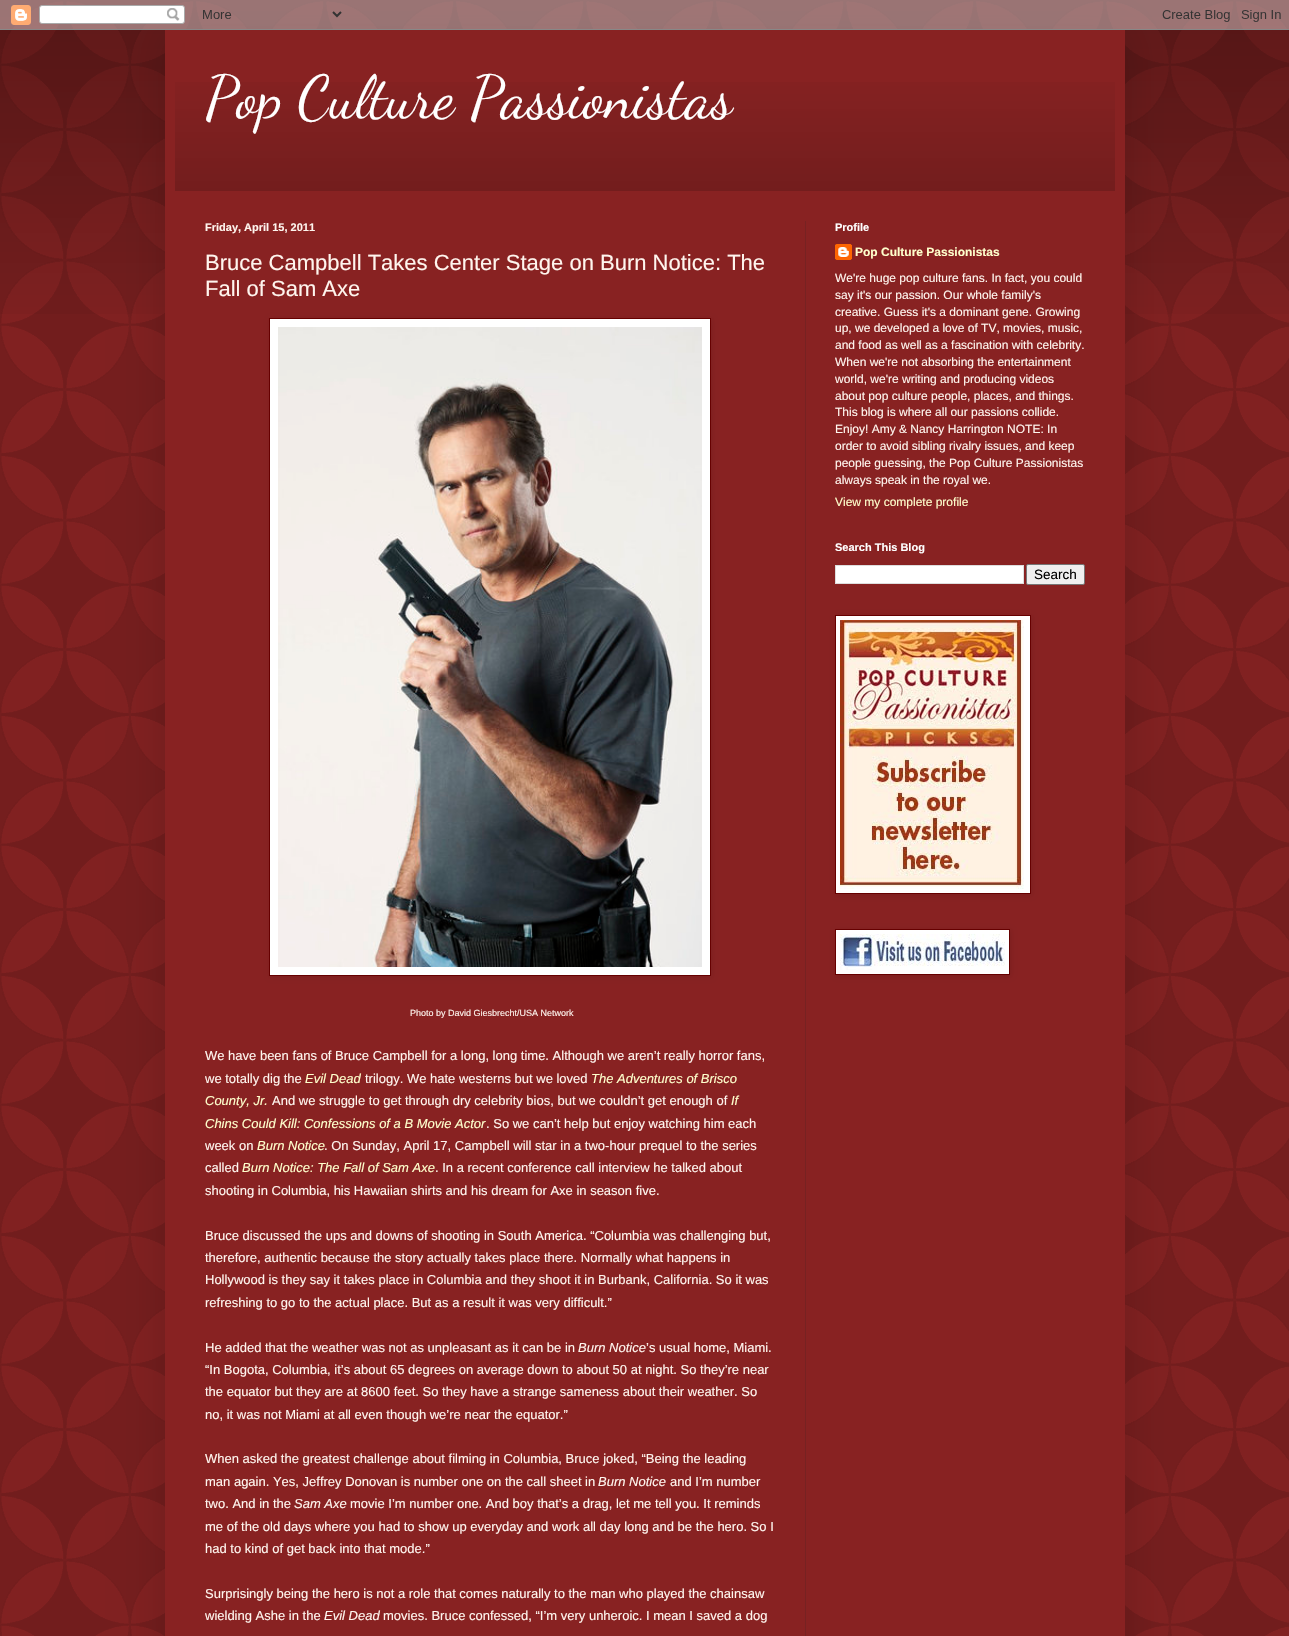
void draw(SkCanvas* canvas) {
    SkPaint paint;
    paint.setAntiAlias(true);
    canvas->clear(0xFF882222);
    canvas->drawImageRect(SkImages::DeferredFromEncodedData(SkData::MakeFromFileName("img1.png")), SkRect::MakeXYWH(0, 0, 1289, 1636), SkSamplingOptions());
    canvas->drawImageRect(SkImages::DeferredFromEncodedData(SkData::MakeFromFileName("img2.png")), SkRect::MakeXYWH(0, 0, 1289, 314), SkSamplingOptions());
    paint.setColor(0x26000000);
    paint.setMaskFilter(SkMaskFilter::MakeBlur(kNormal_SkBlurStyle, 20));
    canvas->drawRect(SkRect::MakeXYWH(165, 30, 960, 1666), paint);
    paint.setMaskFilter(nullptr);
    canvas->drawImageRect(SkImages::DeferredFromEncodedData(SkData::MakeFromFileName("img3.png")), SkRect::MakeXYWH(0, 0, 1289, 30), SkSamplingOptions());
    paint.setColor(0xFF882222);
    canvas->drawRect(SkRect::MakeXYWH(165, 30, 960, 1606), paint);
    canvas->drawImageRect(SkImages::DeferredFromEncodedData(SkData::MakeFromFileName("img4.png")), SkRect::MakeXYWH(175, 82, 940, 109), SkSamplingOptions());
    SkFont font1(fontMgr->matchFamilyStyle("Dancing Script", SkFontStyle::Normal()), 60);
    font1.setSubpixel(true);
    paint.setColor(0xFFFFFFFF);
    canvas->drawString("Pop Culture Passionistas", 205, 117, font1, paint);
    paint.setColor(0xFF772222);
    canvas->drawRect(SkRect::MakeXYWH(805, 221, 1, 1415), paint);
    SkFont font2(fontMgr->matchFamilyStyle("Liberation Sans", SkFontStyle::Bold()), 11);
    font2.setSubpixel(true);
    paint.setColor(0xFFFFF5EE);
    canvas->drawString("Friday, April 15, 2011", 205, 231, font2, paint);
    SkFont font3(fontMgr->matchFamilyStyle("Liberation Sans", SkFontStyle::Normal()), 22);
    font3.setSubpixel(true);
    canvas->drawString("Bruce Campbell Takes Center Stage on Burn Notice: The", 205, 270, font3, paint);
    canvas->drawString("Fall of Sam Axe", 205, 296, font3, paint);
    paint.setColor(0x1A000000);
    paint.setMaskFilter(SkMaskFilter::MakeBlur(kNormal_SkBlurStyle, 2.5f));
    canvas->drawRect(SkRect::MakeXYWH(270, 319, 442, 658), paint);
    paint.setMaskFilter(nullptr);
    paint.setColor(0xFFFFFFFF);
    canvas->drawRect(SkRect::MakeXYWH(269.5f, 318.5f, 441, 657), paint);
    paint.setStyle(SkPaint::kStroke_Style);
    paint.setStrokeWidth(1);
    paint.setColor(0xFF660000);
    canvas->drawRect(SkRect::MakeXYWH(269.5f, 318.5f, 441, 657), paint);
    canvas->drawImageRect(SkImages::DeferredFromEncodedData(SkData::MakeFromFileName("img5.png")), SkRect::MakeXYWH(278, 327, 424, 640), SkSamplingOptions());
    SkFont font4(fontMgr->matchFamilyStyle("Liberation Sans", SkFontStyle::Normal()), 9);
    font4.setSubpixel(true);
    paint.setStyle(SkPaint::kFill_Style);
    paint.setColor(0xFFFFF5EE);
    canvas->drawString("Photo by David Giesbrecht/USA Network", 410, 1016, font4, paint);
    SkFont font5(fontMgr->matchFamilyStyle("Liberation Sans", SkFontStyle::Normal()), 13);
    font5.setSubpixel(true);
    canvas->drawString("We have been fans of Bruce Campbell for a long, long time. Although we aren’t really horror fans,", 205, 1060, font5, paint);
    canvas->drawString("we totally dig the", 205, 1083, font5, paint);
    SkFont font6(fontMgr->matchFamilyStyle("Liberation Sans", SkFontStyle::Italic()), 13);
    font6.setSubpixel(true);
    paint.setColor(0xFFFFFFCC);
    canvas->drawString("Evil Dead", 305, 1083, font6, paint);
    paint.setColor(0xFFFFF5EE);
    canvas->drawString("trilogy. We hate westerns but we loved", 365, 1083, font5, paint);
    paint.setColor(0xFFFFFFCC);
    canvas->drawString("The Adventures of Brisco", 591, 1083, font6, paint);
    canvas->drawString("County, Jr.", 205, 1105, font6, paint);
    paint.setColor(0xFFFFF5EE);
    canvas->drawString("And we struggle to get through dry celebrity bios, but we couldn’t get enough of", 272, 1105, font5, paint);
    paint.setColor(0xFFFFFFCC);
    canvas->drawString("If", 731, 1105, font6, paint);
    canvas->drawString("Chins Could Kill: Confessions of a B Movie Actor", 205, 1128, font6, paint);
    paint.setColor(0xFFFFF5EE);
    canvas->drawString(". So we can’t help but enjoy watching him each", 486, 1128, font5, paint);
    canvas->drawString("week on", 205, 1150, font5, paint);
    paint.setColor(0xFFFFFFCC);
    canvas->drawString("Burn Notice", 257, 1150, font6, paint);
    paint.setColor(0xFFFFF5EE);
    canvas->drawString(". On Sunday, April 17, Campbell will star in a two-hour prequel to the series", 324, 1150, font5, paint);
    canvas->drawString("called", 205, 1172, font5, paint);
    paint.setColor(0xFFFFFFCC);
    canvas->drawString("Burn Notice: The Fall of Sam Axe", 242, 1172, font6, paint);
    paint.setColor(0xFFFFF5EE);
    canvas->drawString(". In a recent conference call interview he talked about", 435, 1172, font5, paint);
    canvas->drawString("shooting in Columbia, his Hawaiian shirts and his dream for Axe in season five.", 205, 1195, font5, paint);
    canvas->drawString("Bruce discussed the ups and downs of shooting in South America. “Columbia was challenging but,", 205, 1240, font5, paint);
    canvas->drawString("therefore, authentic because the story actually takes place there. Normally what happens in", 205, 1262, font5, paint);
    canvas->drawString("Hollywood is they say it takes place in Columbia and they shoot it in Burbank, California. So it was", 205, 1284, font5, paint);
    canvas->drawString("refreshing to go to the actual place. But as a result it was very difficult.”", 205, 1307, font5, paint);
    canvas->drawString("He added that the weather was not as unpleasant as it can be in", 205, 1352, font5, paint);
    canvas->drawString("Burn Notice", 578, 1352, font6, paint);
    canvas->drawString("’s usual home, Miami.", 646, 1352, font5, paint);
    canvas->drawString("“In Bogota, Columbia, it’s about 65 degrees on average down to about 50 at night. So they’re near", 205, 1374, font5, paint);
    canvas->drawString("the equator but they are at 8600 feet. So they have a strange sameness about their weather. So", 205, 1396, font5, paint);
    canvas->drawString("no, it was not Miami at all even though we’re near the equator.”", 205, 1419, font5, paint);
    canvas->drawString("When asked the greatest challenge about filming in Columbia, Bruce joked, “Being the leading", 205, 1463, font5, paint);
    canvas->drawString("man again. Yes, Jeffrey Donovan is number one on the call sheet in", 205, 1486, font5, paint);
    canvas->drawString("Burn Notice", 598, 1486, font6, paint);
    canvas->drawString("and I’m number", 670, 1486, font5, paint);
    canvas->drawString("two. And in the", 205, 1508, font5, paint);
    canvas->drawString("Sam Axe", 294, 1508, font6, paint);
    canvas->drawString("movie I’m number one. And boy that’s a drag, let me tell you. It reminds", 350, 1508, font5, paint);
    canvas->drawString("me of the old days where you had to show up everyday and work all day long and be the hero. So I", 205, 1531, font5, paint);
    canvas->drawString("had to kind of get back into that mode.”", 205, 1553, font5, paint);
    canvas->drawString("Surprisingly being the hero is not a role that comes naturally to the man who played the chainsaw", 205, 1598, font5, paint);
    canvas->drawString("wielding Ashe in the", 205, 1620, font5, paint);
    canvas->drawString("Evil Dead", 324, 1620, font6, paint);
    canvas->drawString("movies. Bruce confessed, “I’m very unheroic. I mean I saved a dog", 383, 1620, font5, paint);
    paint.setColor(0xFFFFFFFF);
    canvas->drawString("Profile", 835, 231, font2, paint);
    canvas->drawImageRect(SkImages::DeferredFromEncodedData(SkData::MakeFromFileName("img6.png")), SkRect::MakeXYWH(835, 244, 17, 16), SkSamplingOptions());
    SkFont font7(fontMgr->matchFamilyStyle("Liberation Sans", SkFontStyle::Bold()), 12);
    font7.setSubpixel(true);
    paint.setColor(0xFFFFFFCC);
    canvas->drawString("Pop Culture Passionistas", 855, 256, font7, paint);
    SkFont font8(fontMgr->matchFamilyStyle("Liberation Sans", SkFontStyle::Normal()), 12);
    font8.setSubpixel(true);
    paint.setColor(0xFFFFF5EE);
    canvas->drawString("We're huge pop culture fans. In fact, you could", 835, 282, font8, paint);
    canvas->drawString("say it's our passion. Our whole family's", 835, 299, font8, paint);
    canvas->drawString("creative. Guess it's a dominant gene. Growing", 835, 316, font8, paint);
    canvas->drawString("up, we developed a love of TV, movies, music,", 835, 332, font8, paint);
    canvas->drawString("and food as well as a fascination with celebrity.", 835, 349, font8, paint);
    canvas->drawString("When we're not absorbing the entertainment", 835, 366, font8, paint);
    canvas->drawString("world, we're writing and producing videos", 835, 383, font8, paint);
    canvas->drawString("about pop culture people, places, and things.", 835, 400, font8, paint);
    canvas->drawString("This blog is where all our passions collide.", 835, 416, font8, paint);
    canvas->drawString("Enjoy! Amy & Nancy Harrington NOTE: In", 835, 433, font8, paint);
    canvas->drawString("order to avoid sibling rivalry issues, and keep", 835, 450, font8, paint);
    canvas->drawString("people guessing, the Pop Culture Passionistas", 835, 467, font8, paint);
    canvas->drawString("always speak in the royal we.", 835, 484, font8, paint);
    paint.setColor(0xFFFFFFCC);
    canvas->drawString("View my complete profile", 835, 506, font8, paint);
    paint.setColor(0xFFFFFFFF);
    canvas->drawString("Search This Blog", 835, 551, font2, paint);
    canvas->drawRect(SkRect::MakeXYWH(835.5f, 565.5f, 188, 18), paint);
    paint.setStyle(SkPaint::kStroke_Style);
    paint.setColor(0xFFDDDDDD);
    canvas->drawRect(SkRect::MakeXYWH(835.5f, 565.5f, 188, 18), paint);
    paint.setStyle(SkPaint::kFill_Style);
    paint.setColor(0xFFEFEFEF);
    canvas->drawRoundRect(SkRect::MakeXYWH(1026.5f, 564.5f, 58, 20), 1.5f, 1.5f, paint);
    paint.setStyle(SkPaint::kStroke_Style);
    paint.setColor(0xFF767676);
    canvas->drawRoundRect(SkRect::MakeXYWH(1026.5f, 564.5f, 58, 20), 1.5f, 1.5f, paint);
    SkFont font9(fontMgr->matchFamilyStyle("Liberation Sans", SkFontStyle::Normal()), 13.5f);
    font9.setSubpixel(true);
    paint.setStyle(SkPaint::kFill_Style);
    paint.setColor(0xFF000000);
    canvas->drawString("Search", 1034, 579, font9, paint);
    paint.setColor(0x1A000000);
    paint.setMaskFilter(SkMaskFilter::MakeBlur(kNormal_SkBlurStyle, 2.5f));
    canvas->drawRect(SkRect::MakeXYWH(836, 616, 196, 279), paint);
    paint.setMaskFilter(nullptr);
    paint.setColor(0xFFFFFFFF);
    canvas->drawRect(SkRect::MakeXYWH(835.5f, 615.5f, 195, 278), paint);
    paint.setStyle(SkPaint::kStroke_Style);
    paint.setColor(0xFF660000);
    canvas->drawRect(SkRect::MakeXYWH(835.5f, 615.5f, 195, 278), paint);
    canvas->drawImageRect(SkImages::DeferredFromEncodedData(SkData::MakeFromFileName("img7.png")), SkRect::MakeXYWH(840, 620, 184, 269), SkSamplingOptions());
    paint.setStyle(SkPaint::kFill_Style);
    paint.setColor(0x1A000000);
    paint.setMaskFilter(SkMaskFilter::MakeBlur(kNormal_SkBlurStyle, 2.5f));
    canvas->drawRect(SkRect::MakeXYWH(836, 930, 175, 46), paint);
    paint.setMaskFilter(nullptr);
    paint.setColor(0xFFFFFFFF);
    canvas->drawRect(SkRect::MakeXYWH(835.5f, 929.5f, 174, 45), paint);
    paint.setStyle(SkPaint::kStroke_Style);
    paint.setColor(0xFF660000);
    canvas->drawRect(SkRect::MakeXYWH(835.5f, 929.5f, 174, 45), paint);
    canvas->drawImageRect(SkImages::DeferredFromEncodedData(SkData::MakeFromFileName("img8.png")), SkRect::MakeXYWH(840, 934, 165, 36), SkSamplingOptions());
}
